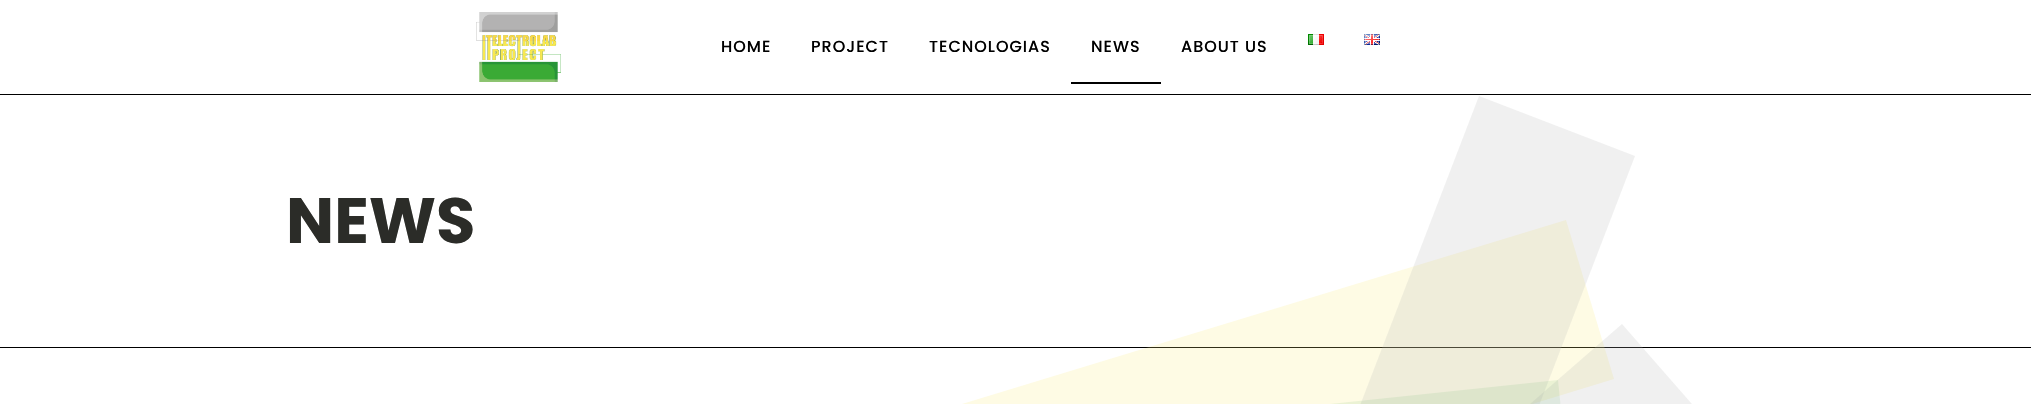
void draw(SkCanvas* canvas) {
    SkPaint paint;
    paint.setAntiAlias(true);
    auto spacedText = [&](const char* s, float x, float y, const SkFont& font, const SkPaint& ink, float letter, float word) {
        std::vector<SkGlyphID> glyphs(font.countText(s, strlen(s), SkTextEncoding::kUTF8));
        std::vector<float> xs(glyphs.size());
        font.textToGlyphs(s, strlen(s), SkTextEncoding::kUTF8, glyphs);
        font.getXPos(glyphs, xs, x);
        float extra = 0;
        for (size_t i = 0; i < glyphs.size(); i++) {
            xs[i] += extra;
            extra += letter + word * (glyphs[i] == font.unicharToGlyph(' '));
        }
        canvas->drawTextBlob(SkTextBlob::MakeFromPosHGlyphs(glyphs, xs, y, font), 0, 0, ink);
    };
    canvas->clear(0xFFFFFFFF);
    paint.setColor(0xFF000000);
    canvas->drawRect(SkRect::MakeXYWH(0, 94, 2031, 1), paint);
    canvas->drawImageRect(SkImages::DeferredFromEncodedData(SkData::MakeFromFileName("img1.png")), SkRect::MakeXYWH(476, 12, 85, 70), SkSamplingOptions());
    SkFont font1(fontMgr->matchFamilyStyle("Poppins", SkFontStyle(500, SkFontStyle::kNormal_Width, SkFontStyle::kUpright_Slant)), 16);
    font1.setSubpixel(true);
    spacedText("HOME", 721, 52, font1, paint, 1, 0);
    spacedText("PROJECT", 811, 52, font1, paint, 1, 0);
    spacedText("TECNOLOGIAS", 929, 52, font1, paint, 1, 0);
    canvas->drawRect(SkRect::MakeXYWH(1071, 82, 90, 2), paint);
    spacedText("NEWS", 1091, 52, font1, paint, 1, 0);
    spacedText("ABOUT US", 1181, 52, font1, paint, 1, 0);
    canvas->drawImageRect(SkImages::DeferredFromEncodedData(SkData::MakeFromFileName("img2.png")), SkRect::MakeXYWH(1308, 34, 16, 11), SkSamplingOptions());
    canvas->drawImageRect(SkImages::DeferredFromEncodedData(SkData::MakeFromFileName("img3.png")), SkRect::MakeXYWH(1364, 34, 16, 11), SkSamplingOptions());
    canvas->drawRect(SkRect::MakeXYWH(0, 347, 2031, 1), paint);
    SkFont font2(fontMgr->matchFamilyStyle("Poppins", SkFontStyle::Bold()), 64);
    font2.setSubpixel(true);
    paint.setColor(0xFF2B2C28);
    canvas->drawString("NEWS", 286, 243, font2, paint);
    paint.setColor(0x33F9ED7A);
    canvas->drawPath(SkPathBuilder().moveTo(637, 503).lineTo(1566, 220).lineTo(1614, 379).lineTo(686, 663).close().detach(), paint);
    paint.setColor(0x33B3B2B2);
    canvas->drawPath(SkPathBuilder().moveTo(1156, 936).lineTo(1479, 96).lineTo(1635, 156).lineTo(1312, 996).close().detach(), paint);
    canvas->drawPath(SkPathBuilder().moveTo(1726, 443).lineTo(1084, 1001).lineTo(980, 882).lineTo(1622, 324).close().detach(), paint);
    paint.setColor(0x17299734);
    canvas->drawPath(SkPathBuilder().moveTo(1574, 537).lineTo(728, 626).lineTo(712, 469).lineTo(1558, 380).close().detach(), paint);
}
